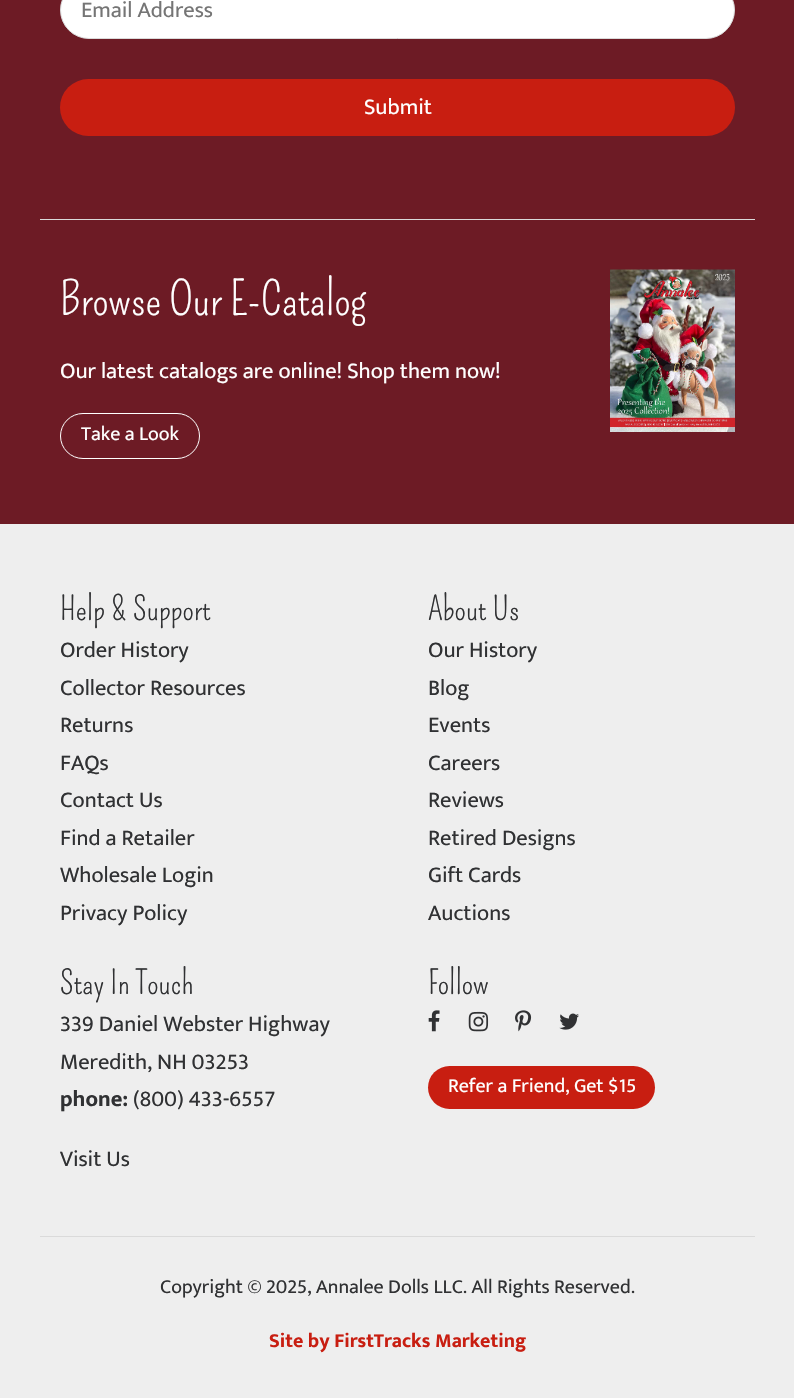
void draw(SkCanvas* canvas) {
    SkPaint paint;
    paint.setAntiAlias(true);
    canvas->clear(0xFF6D1B25);
    paint.setColor(0xFFDADADA);
    canvas->drawRect(SkRect::MakeXYWH(40, 219, 715, 1), paint);
    paint.setColor(0xFFFFFFFF);
    canvas->drawRoundRect(SkRect::MakeXYWH(60.5f, -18.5f, 674, 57), 28.5f, 28.5f, paint);
    paint.setStyle(SkPaint::kStroke_Style);
    paint.setStrokeWidth(1);
    paint.setColor(0xFFDADADA);
    canvas->drawRoundRect(SkRect::MakeXYWH(60.5f, -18.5f, 674, 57), 28.5f, 28.5f, paint);
    SkFont font1(fontMgr->matchFamilyStyle("Mukta", SkFontStyle::Normal()), 22.5f);
    font1.setSubpixel(true);
    paint.setStyle(SkPaint::kFill_Style);
    paint.setColor(0xFF757575);
    canvas->drawString("Email Address", 81, 17, font1, paint);
    paint.setColor(0xFFC81E11);
    canvas->drawRoundRect(SkRect::MakeXYWH(60, 79, 675, 57), 28.5f, 28.5f, paint);
    paint.setColor(0xFFFFFFFF);
    canvas->drawString("Submit", 364, 114, font1, paint);
    SkFont font2(fontMgr->matchFamilyStyle("Pompiere", SkFontStyle::Normal()), 46.25f);
    font2.setSubpixel(true);
    canvas->drawString("Browse Our E-Catalog", 60, 315, font2, paint);
    canvas->drawString("Our latest catalogs are online! Shop them now!", 60, 378, font1, paint);
    paint.setStyle(SkPaint::kStroke_Style);
    canvas->drawRoundRect(SkRect::MakeXYWH(60.5f, 413.5f, 139, 45), 22.5f, 22.5f, paint);
    SkFont font3(fontMgr->matchFamilyStyle("Mukta", SkFontStyle::Normal()), 20);
    font3.setSubpixel(true);
    paint.setStyle(SkPaint::kFill_Style);
    canvas->drawString("Take a Look", 81, 440, font3, paint);
    canvas->drawImageRect(SkImages::DeferredFromEncodedData(SkData::MakeFromFileName("img1.png")), SkRect::MakeXYWH(610, 269, 125, 163), SkSamplingOptions());
    paint.setColor(0xFFEEEEEE);
    canvas->drawRect(SkRect::MakeXYWH(0, 524, 794, 874), paint);
    SkFont font4(fontMgr->matchFamilyStyle("Pompiere", SkFontStyle::Normal()), 32.5f);
    font4.setSubpixel(true);
    paint.setColor(0xFF303133);
    canvas->drawString("Help & Support", 60, 620, font4, paint);
    canvas->drawString("Order History", 60, 657, font1, paint);
    canvas->drawString("Collector Resources", 60, 695, font1, paint);
    canvas->drawString("Returns", 60, 732, font1, paint);
    canvas->drawString("FAQs", 60, 770, font1, paint);
    canvas->drawString("Contact Us", 60, 807, font1, paint);
    canvas->drawString("Find a Retailer", 60, 845, font1, paint);
    canvas->drawString("Wholesale Login", 60, 882, font1, paint);
    canvas->drawString("Privacy Policy", 60, 920, font1, paint);
    canvas->drawString("About Us", 428, 620, font4, paint);
    canvas->drawString("Our History", 428, 657, font1, paint);
    canvas->drawString("Blog", 428, 695, font1, paint);
    canvas->drawString("Events", 428, 732, font1, paint);
    canvas->drawString("Careers", 428, 770, font1, paint);
    canvas->drawString("Reviews", 428, 807, font1, paint);
    canvas->drawString("Retired Designs", 428, 845, font1, paint);
    canvas->drawString("Gift Cards", 428, 882, font1, paint);
    canvas->drawString("Auctions", 428, 920, font1, paint);
    canvas->drawString("Stay In Touch", 60, 994, font4, paint);
    canvas->drawString("339 Daniel Webster Highway", 60, 1031, font1, paint);
    canvas->drawString("Meredith, NH 03253", 60, 1069, font1, paint);
    SkFont font5(fontMgr->matchFamilyStyle("Mukta", SkFontStyle::Bold()), 22.5f);
    font5.setSubpixel(true);
    canvas->drawString("phone:", 60, 1106, font5, paint);
    canvas->drawString("(800) 433-6557", 133, 1106, font1, paint);
    canvas->drawString("Visit Us", 60, 1166, font1, paint);
    canvas->drawString("Follow", 428, 994, font4, paint);
    canvas->drawImageRect(SkImages::DeferredFromEncodedData(SkData::MakeFromFileName("img2.png")), SkRect::MakeXYWH(428, 1010, 12, 22), SkSamplingOptions());
    canvas->drawImageRect(SkImages::DeferredFromEncodedData(SkData::MakeFromFileName("img3.png")), SkRect::MakeXYWH(468, 1011, 21, 21), SkSamplingOptions());
    canvas->drawImageRect(SkImages::DeferredFromEncodedData(SkData::MakeFromFileName("img4.png")), SkRect::MakeXYWH(515, 1010, 17, 22), SkSamplingOptions());
    canvas->drawImageRect(SkImages::DeferredFromEncodedData(SkData::MakeFromFileName("img5.png")), SkRect::MakeXYWH(559, 1013, 20, 17), SkSamplingOptions());
    paint.setColor(0xFFC81E11);
    canvas->drawRoundRect(SkRect::MakeXYWH(428, 1066, 227, 43), 21.5f, 21.5f, paint);
    paint.setColor(0xFFFFFFFF);
    canvas->drawString("Refer a Friend, Get $15", 448, 1092, font3, paint);
    paint.setColor(0xFFDADADA);
    canvas->drawRect(SkRect::MakeXYWH(40, 1236, 715, 1), paint);
    paint.setColor(0xFF303133);
    canvas->drawString("Copyright © 2025, Annalee Dolls LLC. All Rights Reserved.", 160, 1293, font3, paint);
    SkFont font6(fontMgr->matchFamilyStyle("Mukta", SkFontStyle::Bold()), 20);
    font6.setSubpixel(true);
    paint.setColor(0xFFC81E11);
    canvas->drawString("Site by FirstTracks Marketing", 269, 1347, font6, paint);
}
